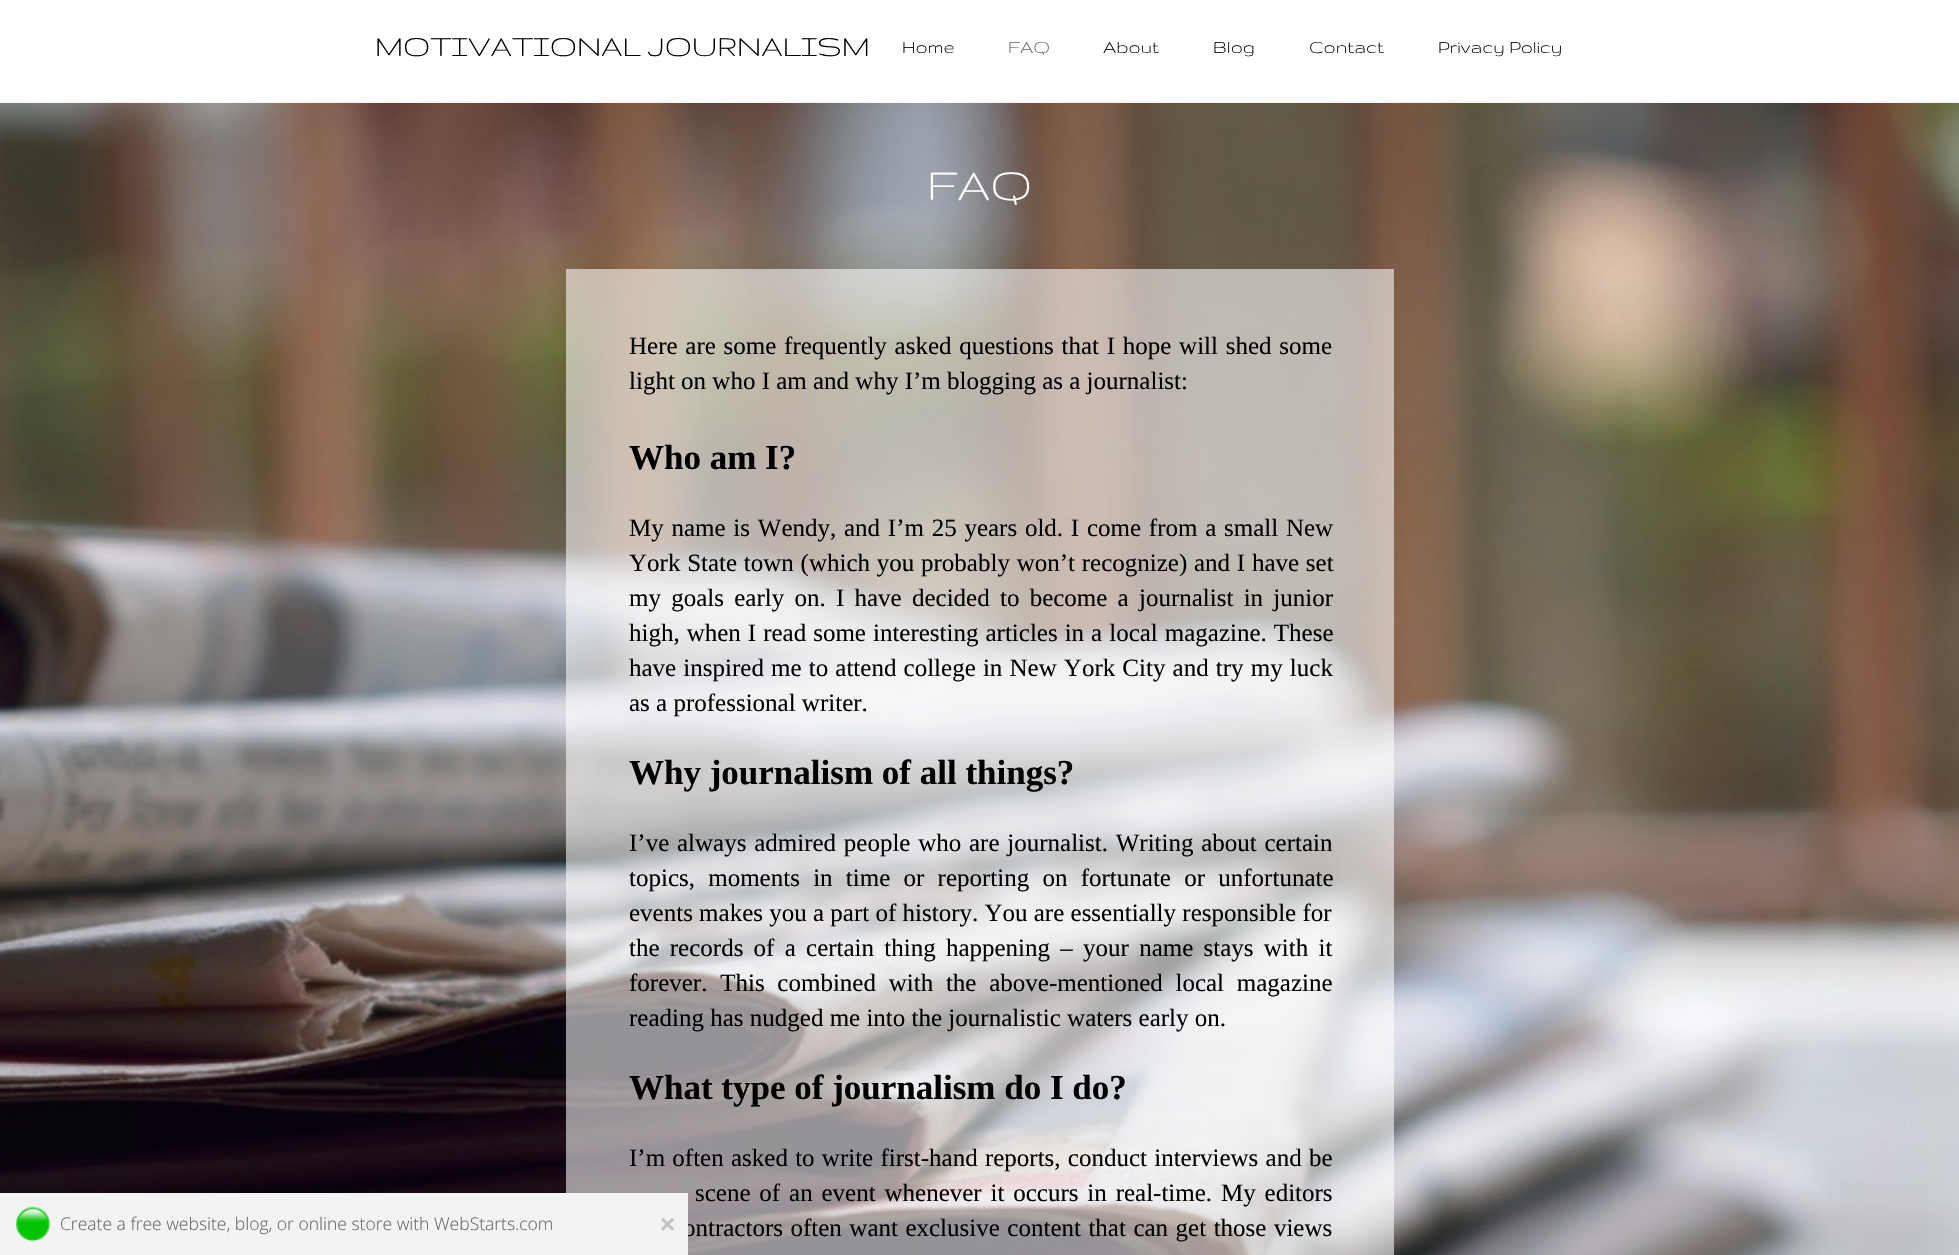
void draw(SkCanvas* canvas) {
    SkPaint paint;
    paint.setAntiAlias(true);
    auto spacedText = [&](const char* s, float x, float y, const SkFont& font, const SkPaint& ink, float letter, float word) {
        std::vector<SkGlyphID> glyphs(font.countText(s, strlen(s), SkTextEncoding::kUTF8));
        std::vector<float> xs(glyphs.size());
        font.textToGlyphs(s, strlen(s), SkTextEncoding::kUTF8, glyphs);
        font.getXPos(glyphs, xs, x);
        float extra = 0;
        for (size_t i = 0; i < glyphs.size(); i++) {
            xs[i] += extra;
            extra += letter + word * (glyphs[i] == font.unicharToGlyph(' '));
        }
        canvas->drawTextBlob(SkTextBlob::MakeFromPosHGlyphs(glyphs, xs, y, font), 0, 0, ink);
    };
    canvas->clear(0xFFFFFFFF);
    SkFont font1(fontMgr->matchFamilyStyle("Gruppo", SkFontStyle::Normal()), 32.5f);
    font1.setSubpixel(true);
    paint.setColor(0xFF000000);
    canvas->drawString("MOTIVATIONAL JOURNALISM", 375, 56, font1, paint);
    SkFont font2(fontMgr->matchFamilyStyle("Gruppo", SkFontStyle::Normal()), 20);
    font2.setSubpixel(true);
    canvas->drawString("Home", 902, 53, font2, paint);
    paint.setColor(0xFF666666);
    canvas->drawString("FAQ", 1008, 53, font2, paint);
    paint.setColor(0xFF000000);
    canvas->drawString("About", 1103, 53, font2, paint);
    canvas->drawString("Blog", 1213, 53, font2, paint);
    canvas->drawString("Contact", 1309, 53, font2, paint);
    canvas->drawString("Privacy Policy", 1438, 53, font2, paint);
    canvas->drawImageRect(SkImages::DeferredFromEncodedData(SkData::MakeFromFileName("img2.png")), SkRect::MakeXYWH(0, 102, 1959, 1153), SkSamplingOptions());
    paint.setColor(0x91FFFFFF);
    canvas->drawRect(SkRect::MakeXYWH(566, 269, 828, 986), paint);
    SkFont font3(fontMgr->matchFamilyStyle("Liberation Serif", SkFontStyle::Normal()), 25);
    font3.setSubpixel(true);
    paint.setColor(0xFF000000);
    spacedText("ontractors often want exclusive content that can get those views", 683, 1236, font3, paint, 0, 1.25f);
    paint.setColor(0xFFF3F3F3);
    canvas->drawRect(SkRect::MakeXYWH(0, 1193, 688, 62), paint);
    canvas->drawImageRect(SkImages::DeferredFromEncodedData(SkData::MakeFromFileName("img1.png")), SkRect::MakeXYWH(16, 1206, 35, 36), SkSamplingOptions());
    SkFont font4(fontMgr->matchFamilyStyle("Open Sans", SkFontStyle(300, SkFontStyle::kNormal_Width, SkFontStyle::kUpright_Slant)), 17.5f);
    font4.setSubpixel(true);
    paint.setColor(0xFF666666);
    canvas->drawString("Create a free website, blog, or online store with WebStarts.com", 60, 1230, font4, paint);
    SkFont font5(fontMgr->matchFamilyStyle("Liberation Sans", SkFontStyle::Bold()), 26);
    font5.setSubpixel(true);
    paint.setColor(0xFFC2C2C2);
    canvas->drawString("×", 660, 1233, font5, paint);
    SkFont font6(fontMgr->matchFamilyStyle("Gruppo", SkFontStyle::Normal()), 50);
    font6.setSubpixel(true);
    paint.setColor(0xFFFFFFFF);
    canvas->drawString("FAQ", 927, 200, font6, paint);
    paint.setColor(0xFF000000);
    spacedText("Here are some frequently asked questions that I hope will shed some", 629, 354, font3, paint, 0, 1.5f);
    canvas->drawString("light on who I am and why I’m blogging as a journalist:", 629, 389, font3, paint);
    SkFont font7(fontMgr->matchFamilyStyle("Liberation Serif", SkFontStyle::Bold()), 35);
    font7.setSubpixel(true);
    canvas->drawString("Who am I?", 629, 469, font7, paint);
    spacedText("My name is Wendy, and I’m 25 years old. I come from a small New", 629, 536, font3, paint, 0, 1.5f);
    spacedText("York State town (which you probably won’t recognize) and I have set", 629, 571, font3, paint, 0, 0.5f);
    spacedText("my goals early on. I have decided to become a journalist in junior", 629, 606, font3, paint, 0, 4);
    spacedText("high, when I read some interesting articles in a local magazine. These", 629, 641, font3, paint, 0, 0.75f);
    spacedText("have inspired me to attend college in New York City and try my luck", 629, 676, font3, paint, 0, 0.9f);
    canvas->drawString("as a professional writer.", 629, 711, font3, paint);
    canvas->drawString("Why journalism of all things?", 629, 784, font7, paint);
    spacedText("I’ve always admired people who are journalist. Writing about certain", 629, 851, font3, paint, 0, 1.5f);
    spacedText("topics, moments in time or reporting on fortunate or unfortunate", 629, 886, font3, paint, 0, 7);
    canvas->drawString("events makes you a part of history. You are essentially responsible for", 629, 921, font3, paint);
    spacedText("the records of a certain thing happening – your name stays with it", 629, 956, font3, paint, 0, 4);
    spacedText("forever. This combined with the above-mentioned local magazine", 629, 991, font3, paint, 0, 6.5f);
    canvas->drawString("reading has nudged me into the journalistic waters early on.", 629, 1026, font3, paint);
    canvas->drawString("What type of journalism do I do?", 629, 1099, font7, paint);
    spacedText("I’m often asked to write first-hand reports, conduct interviews and be", 629, 1166, font3, paint, 0, 1);
    spacedText("scene of an event whenever it occurs in real-time. My editors", 695, 1201, font3, paint, 0, 2.6f);
}
